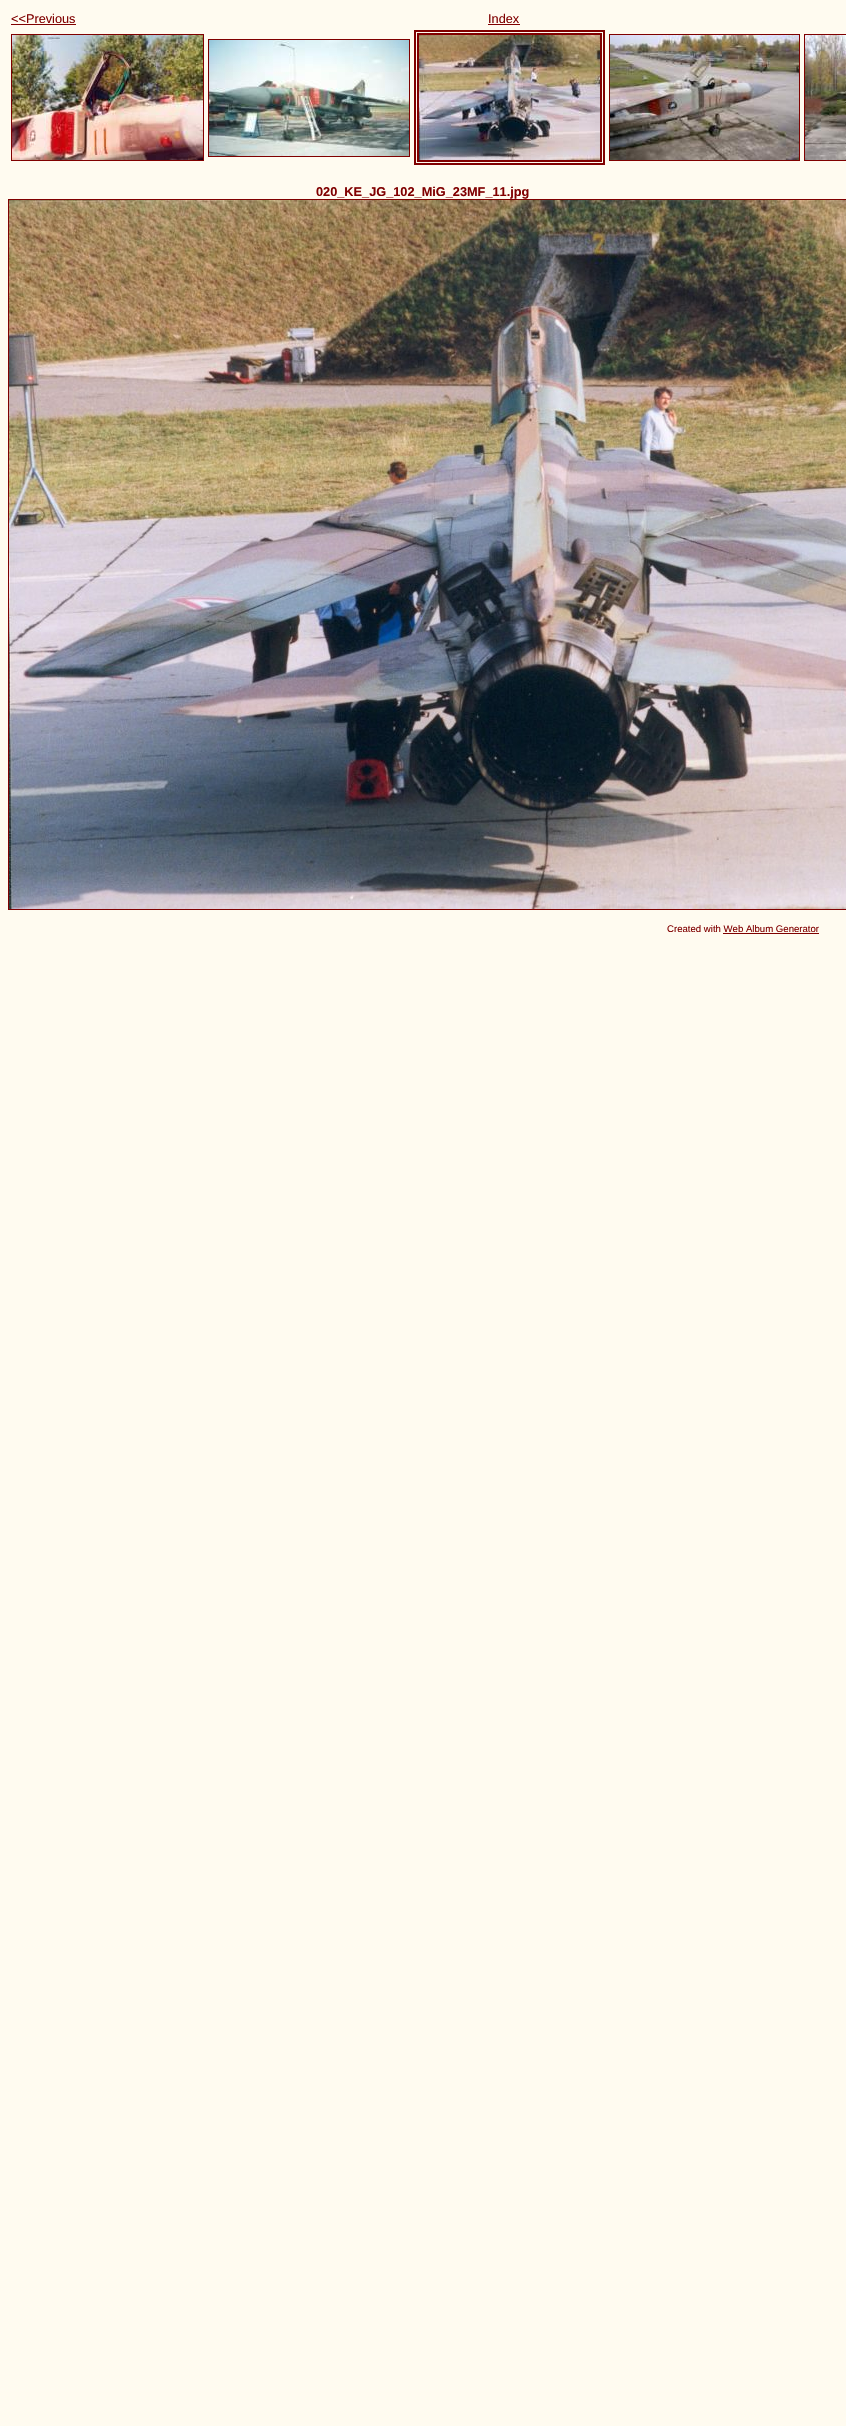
void draw(SkCanvas* canvas) {
    SkPaint paint;
    paint.setAntiAlias(true);
    canvas->clear(0xFFFFFBF0);
    SkFont font1(fontMgr->matchFamilyStyle("Liberation Sans", SkFontStyle::Normal()), 12.75f);
    font1.setSubpixel(true);
    paint.setColor(0xFF800000);
    canvas->drawString("<<Previous", 11, 23, font1, paint);
    canvas->drawRect(SkRect::MakeXYWH(11, 24, 65, 1), paint);
    canvas->drawString("Index", 488, 23, font1, paint);
    canvas->drawRect(SkRect::MakeXYWH(488, 24, 32, 1), paint);
    paint.setStyle(SkPaint::kStroke_Style);
    paint.setStrokeWidth(1);
    canvas->drawRect(SkRect::MakeXYWH(11.5f, 34.5f, 192, 126), paint);
    canvas->drawImageRect(SkImages::DeferredFromEncodedData(SkData::MakeFromFileName("img1.png")), SkRect::MakeXYWH(12, 35, 191, 125), SkSamplingOptions());
    canvas->drawRect(SkRect::MakeXYWH(208.5f, 39.5f, 201, 117), paint);
    canvas->drawImageRect(SkImages::DeferredFromEncodedData(SkData::MakeFromFileName("img2.png")), SkRect::MakeXYWH(209, 40, 200, 116), SkSamplingOptions());
    paint.setStrokeWidth(2);
    canvas->drawRect(SkRect::MakeXYWH(415, 31, 189, 133), paint);
    canvas->drawRect(SkRect::MakeXYWH(418, 34, 183, 127), paint);
    canvas->drawImageRect(SkImages::DeferredFromEncodedData(SkData::MakeFromFileName("img3.png")), SkRect::MakeXYWH(419, 35, 181, 125), SkSamplingOptions());
    paint.setStrokeWidth(1);
    canvas->drawRect(SkRect::MakeXYWH(609.5f, 34.5f, 190, 126), paint);
    canvas->drawImageRect(SkImages::DeferredFromEncodedData(SkData::MakeFromFileName("img4.png")), SkRect::MakeXYWH(610, 35, 189, 125), SkSamplingOptions());
    canvas->drawRect(SkRect::MakeXYWH(804.5f, 34.5f, 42, 126), paint);
    canvas->drawImageRect(SkImages::DeferredFromEncodedData(SkData::MakeFromFileName("img5.png")), SkRect::MakeXYWH(805, 35, 41, 125), SkSamplingOptions());
    SkFont font2(fontMgr->matchFamilyStyle("Liberation Sans", SkFontStyle::Bold()), 12.75f);
    font2.setSubpixel(true);
    paint.setStyle(SkPaint::kFill_Style);
    canvas->drawString("020_KE_JG_102_MiG_23MF_11.jpg", 316, 196, font2, paint);
    paint.setStyle(SkPaint::kStroke_Style);
    canvas->drawRect(SkRect::MakeXYWH(8.5f, 199.5f, 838, 710), paint);
    canvas->drawImageRect(SkImages::DeferredFromEncodedData(SkData::MakeFromFileName("img6.png")), SkRect::MakeXYWH(9, 200, 837, 709), SkSamplingOptions());
    SkFont font3(fontMgr->matchFamilyStyle("Liberation Sans", SkFontStyle::Normal()), 9.6f);
    font3.setSubpixel(true);
    paint.setStyle(SkPaint::kFill_Style);
    canvas->drawString("Created with Web Album Generator", 667, 932, font3, paint);
    canvas->drawRect(SkRect::MakeXYWH(723, 933, 96, 1), paint);
}
